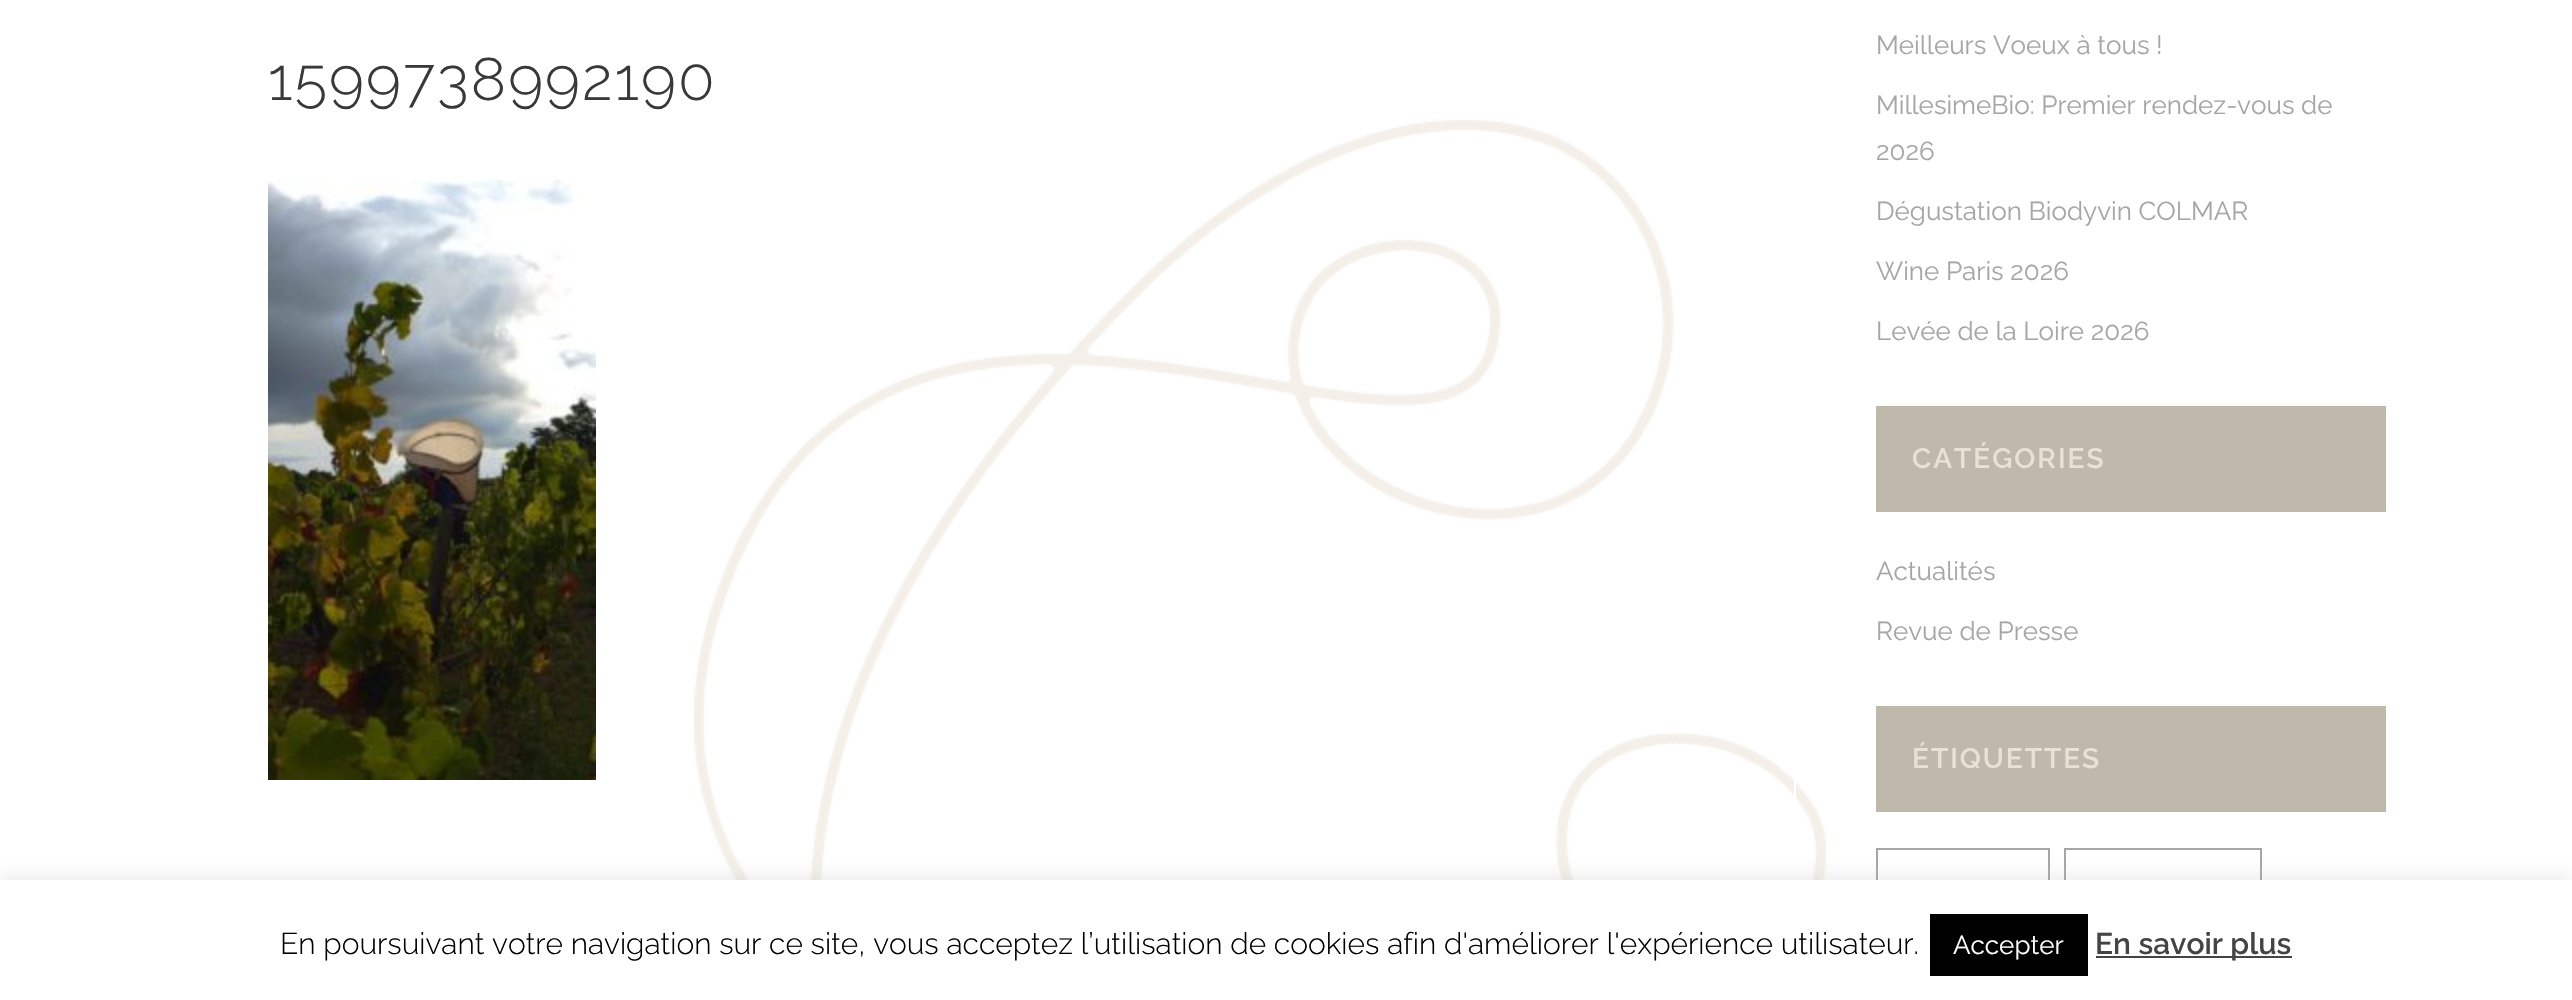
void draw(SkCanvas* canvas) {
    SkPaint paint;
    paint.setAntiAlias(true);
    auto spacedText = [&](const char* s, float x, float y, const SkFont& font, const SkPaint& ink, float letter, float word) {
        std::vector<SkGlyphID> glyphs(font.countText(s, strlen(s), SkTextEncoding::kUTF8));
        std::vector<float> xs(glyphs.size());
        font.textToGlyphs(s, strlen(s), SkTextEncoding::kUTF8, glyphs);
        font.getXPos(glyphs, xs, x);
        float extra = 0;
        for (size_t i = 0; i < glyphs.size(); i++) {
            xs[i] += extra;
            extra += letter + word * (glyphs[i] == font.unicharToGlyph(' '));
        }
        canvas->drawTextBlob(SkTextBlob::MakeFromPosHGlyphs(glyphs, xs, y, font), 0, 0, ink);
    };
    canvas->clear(0xFFFFFFFF);
    canvas->drawImageRect(SkImages::DeferredFromEncodedData(SkData::MakeFromFileName("img1.png")), SkRect::MakeXYWH(693, 119, 1134, 761), SkSamplingOptions());
    paint.setStyle(SkPaint::kStroke_Style);
    paint.setStrokeWidth(2);
    paint.setColor(0xFFFFFFFF);
    canvas->drawRect(SkRect::MakeXYWH(187, -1, 1608, 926), paint);
    SkFont font1(fontMgr->matchFamilyStyle("Raleway", SkFontStyle(300, SkFontStyle::kNormal_Width, SkFontStyle::kUpright_Slant)), 60);
    font1.setSubpixel(true);
    paint.setStyle(SkPaint::kFill_Style);
    paint.setColor(0xFF393939);
    spacedText("1599738992190", 268, 100, font1, paint, 2, 0);
    canvas->drawImageRect(SkImages::DeferredFromEncodedData(SkData::MakeFromFileName("img2.png")), SkRect::MakeXYWH(268, 180, 328, 600), SkSamplingOptions());
    SkFont font2(fontMgr->matchFamilyStyle("Raleway", SkFontStyle::Normal()), 26);
    font2.setSubpixel(true);
    paint.setColor(0xFFA6A6A6);
    canvas->drawString("Meilleurs Voeux à tous !", 1876, 54, font2, paint);
    canvas->drawString("MillesimeBio: Premier rendez-vous de", 1876, 114, font2, paint);
    canvas->drawString("2026", 1876, 160, font2, paint);
    canvas->drawString("Dégustation Biodyvin COLMAR", 1876, 220, font2, paint);
    canvas->drawString("Wine Paris 2026", 1876, 280, font2, paint);
    canvas->drawString("Levée de la Loire 2026", 1876, 340, font2, paint);
    paint.setColor(0xFFBEB9AB);
    canvas->drawRect(SkRect::MakeXYWH(1876, 406, 510, 106), paint);
    SkFont font3(fontMgr->matchFamilyStyle("Raleway", SkFontStyle(600, SkFontStyle::kNormal_Width, SkFontStyle::kUpright_Slant)), 28);
    font3.setSubpixel(true);
    paint.setColor(0xFFE8E2D4);
    spacedText("CATÉGORIES", 1912, 468, font3, paint, 2, 0);
    paint.setColor(0xFFA6A6A6);
    canvas->drawString("Actualités", 1876, 580, font2, paint);
    canvas->drawString("Revue de Presse", 1876, 640, font2, paint);
    paint.setColor(0xFFBEB9AB);
    canvas->drawRect(SkRect::MakeXYWH(1876, 706, 510, 106), paint);
    paint.setColor(0xFFE8E2D4);
    spacedText("ÉTIQUETTES", 1912, 768, font3, paint, 2, 0);
    paint.setStyle(SkPaint::kStroke_Style);
    paint.setColor(0xFFA7A6A6);
    canvas->drawRect(SkRect::MakeXYWH(1877, 849, 172, 66), paint);
    canvas->drawRect(SkRect::MakeXYWH(2065, 849, 196, 66), paint);
    paint.setStyle(SkPaint::kFill_Style);
    paint.setColor(0x4DACABAB);
    paint.setMaskFilter(SkMaskFilter::MakeBlur(kNormal_SkBlurStyle, 10));
    canvas->drawRect(SkRect::MakeXYWH(0, 878, 2572, 120), paint);
    paint.setMaskFilter(nullptr);
    paint.setColor(0xFFFFFFFF);
    canvas->drawRect(SkRect::MakeXYWH(0, 880, 2572, 120), paint);
    SkFont font4(fontMgr->matchFamilyStyle("Raleway", SkFontStyle(300, SkFontStyle::kNormal_Width, SkFontStyle::kUpright_Slant)), 30);
    font4.setSubpixel(true);
    paint.setColor(0xFF000000);
    canvas->drawString("En poursuivant votre navigation sur ce site, vous acceptez l’utilisation de cookies afin d'améliorer l'expérience utilisateur.", 280, 954, font4, paint);
    canvas->drawRect(SkRect::MakeXYWH(1930, 914, 158, 62), paint);
    paint.setColor(0xFFFFFFFF);
    canvas->drawString("Accepter", 1953, 954, font2, paint);
    paint.setColor(0xFF444444);
    canvas->drawRect(SkRect::MakeXYWH(2096, 956, 196, 2), paint);
    SkFont font5(fontMgr->matchFamilyStyle("Raleway", SkFontStyle(600, SkFontStyle::kNormal_Width, SkFontStyle::kUpright_Slant)), 30);
    font5.setSubpixel(true);
    canvas->drawString("En savoir plus", 2095, 954, font5, paint);
}
